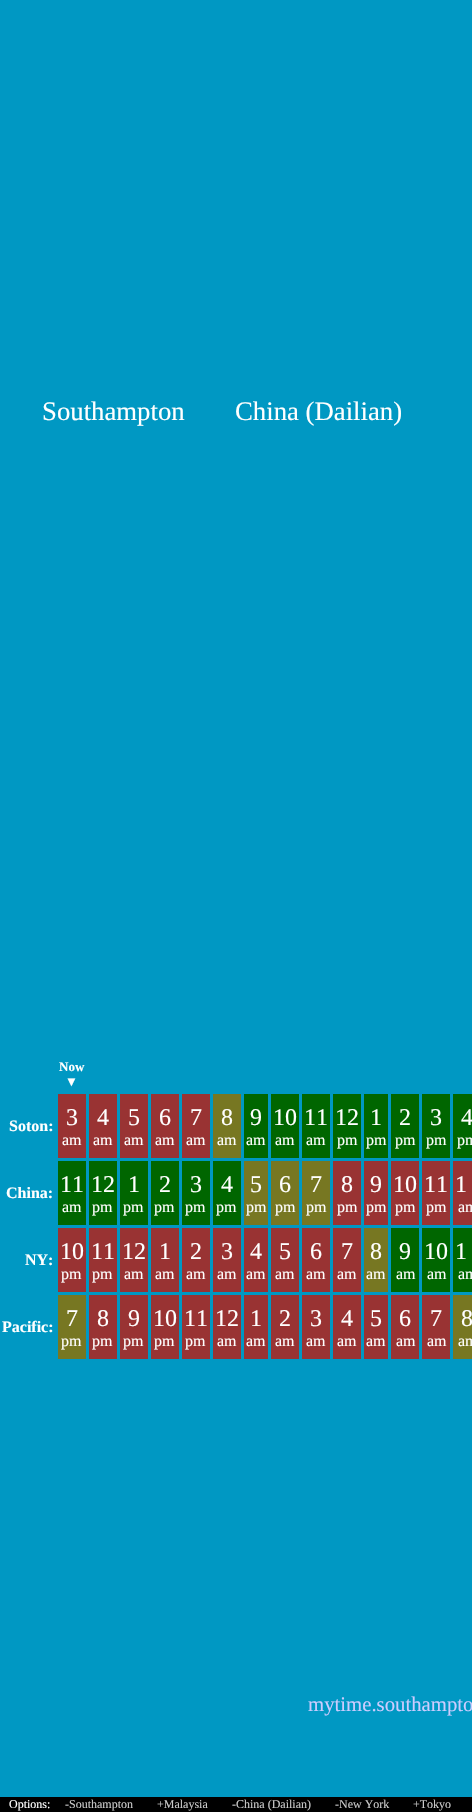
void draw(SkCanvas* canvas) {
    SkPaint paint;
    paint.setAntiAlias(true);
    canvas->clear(0xFF0098C3);
    SkFont font1(fontMgr->matchFamilyStyle("Liberation Serif", SkFontStyle::Normal()), 26.75f);
    font1.setSubpixel(true);
    paint.setColor(0xFFFFFFFF);
    canvas->drawString("Southampton", 42, 420, font1, paint);
    canvas->drawString("China (Dailian)", 235, 420, font1, paint);
    SkFont font2(fontMgr->matchFamilyStyle("Liberation Serif", SkFontStyle::Bold()), 13);
    font2.setSubpixel(true);
    canvas->drawString("Now", 59, 1071, font2, paint);
    canvas->drawString("▼", 65, 1086, font2, paint);
    SkFont font3(fontMgr->matchFamilyStyle("Liberation Serif", SkFontStyle::Bold()), 16);
    font3.setSubpixel(true);
    canvas->drawString("Soton:", 9, 1131, font3, paint);
    paint.setColor(0xFF993333);
    canvas->drawRect(SkRect::MakeXYWH(58, 1094, 28, 64), paint);
    SkFont font4(fontMgr->matchFamilyStyle("Liberation Serif", SkFontStyle::Normal()), 24);
    font4.setSubpixel(true);
    paint.setColor(0xFFFFFFFF);
    canvas->drawString("3", 66, 1125, font4, paint);
    SkFont font5(fontMgr->matchFamilyStyle("Liberation Serif", SkFontStyle::Normal()), 16);
    font5.setSubpixel(true);
    canvas->drawString("am", 62, 1145, font5, paint);
    paint.setColor(0xFF993333);
    canvas->drawRect(SkRect::MakeXYWH(89, 1094, 28, 64), paint);
    paint.setColor(0xFFFFFFFF);
    canvas->drawString("4", 97, 1125, font4, paint);
    canvas->drawString("am", 93, 1145, font5, paint);
    paint.setColor(0xFF993333);
    canvas->drawRect(SkRect::MakeXYWH(120, 1094, 28, 64), paint);
    paint.setColor(0xFFFFFFFF);
    canvas->drawString("5", 128, 1125, font4, paint);
    canvas->drawString("am", 124, 1145, font5, paint);
    paint.setColor(0xFF993333);
    canvas->drawRect(SkRect::MakeXYWH(151, 1094, 28, 64), paint);
    paint.setColor(0xFFFFFFFF);
    canvas->drawString("6", 159, 1125, font4, paint);
    canvas->drawString("am", 155, 1145, font5, paint);
    paint.setColor(0xFF993333);
    canvas->drawRect(SkRect::MakeXYWH(182, 1094, 28, 64), paint);
    paint.setColor(0xFFFFFFFF);
    canvas->drawString("7", 190, 1125, font4, paint);
    canvas->drawString("am", 186, 1145, font5, paint);
    paint.setColor(0xFF777722);
    canvas->drawRect(SkRect::MakeXYWH(213, 1094, 28, 64), paint);
    paint.setColor(0xFFFFFFFF);
    canvas->drawString("8", 221, 1125, font4, paint);
    canvas->drawString("am", 217, 1145, font5, paint);
    paint.setColor(0xFF006600);
    canvas->drawRect(SkRect::MakeXYWH(244, 1094, 24, 64), paint);
    paint.setColor(0xFFFFFFFF);
    canvas->drawString("9", 250, 1125, font4, paint);
    canvas->drawString("am", 246, 1145, font5, paint);
    paint.setColor(0xFF006600);
    canvas->drawRect(SkRect::MakeXYWH(271, 1094, 28, 64), paint);
    paint.setColor(0xFFFFFFFF);
    canvas->drawString("10", 273, 1125, font4, paint);
    canvas->drawString("am", 275, 1145, font5, paint);
    paint.setColor(0xFF006600);
    canvas->drawRect(SkRect::MakeXYWH(302, 1094, 28, 64), paint);
    paint.setColor(0xFFFFFFFF);
    canvas->drawString("11", 304, 1125, font4, paint);
    canvas->drawString("am", 306, 1145, font5, paint);
    paint.setColor(0xFF006600);
    canvas->drawRect(SkRect::MakeXYWH(333, 1094, 28, 64), paint);
    paint.setColor(0xFFFFFFFF);
    canvas->drawString("12", 335, 1125, font4, paint);
    canvas->drawString("pm", 337, 1145, font5, paint);
    paint.setColor(0xFF006600);
    canvas->drawRect(SkRect::MakeXYWH(364, 1094, 24, 64), paint);
    paint.setColor(0xFFFFFFFF);
    canvas->drawString("1", 370, 1125, font4, paint);
    canvas->drawString("pm", 366, 1145, font5, paint);
    paint.setColor(0xFF006600);
    canvas->drawRect(SkRect::MakeXYWH(391, 1094, 28, 64), paint);
    paint.setColor(0xFFFFFFFF);
    canvas->drawString("2", 399, 1125, font4, paint);
    canvas->drawString("pm", 395, 1145, font5, paint);
    paint.setColor(0xFF006600);
    canvas->drawRect(SkRect::MakeXYWH(422, 1094, 28, 64), paint);
    paint.setColor(0xFFFFFFFF);
    canvas->drawString("3", 430, 1125, font4, paint);
    canvas->drawString("pm", 426, 1145, font5, paint);
    paint.setColor(0xFF006600);
    canvas->drawRect(SkRect::MakeXYWH(453, 1094, 19, 64), paint);
    paint.setColor(0xFFFFFFFF);
    canvas->drawString("4", 461, 1125, font4, paint);
    canvas->drawString("pm", 457, 1145, font5, paint);
    canvas->drawString("China:", 6, 1198, font3, paint);
    paint.setColor(0xFF006600);
    canvas->drawRect(SkRect::MakeXYWH(58, 1161, 28, 64), paint);
    paint.setColor(0xFFFFFFFF);
    canvas->drawString("11", 60, 1192, font4, paint);
    canvas->drawString("am", 62, 1212, font5, paint);
    paint.setColor(0xFF006600);
    canvas->drawRect(SkRect::MakeXYWH(89, 1161, 28, 64), paint);
    paint.setColor(0xFFFFFFFF);
    canvas->drawString("12", 91, 1192, font4, paint);
    canvas->drawString("pm", 92, 1212, font5, paint);
    paint.setColor(0xFF006600);
    canvas->drawRect(SkRect::MakeXYWH(120, 1161, 28, 64), paint);
    paint.setColor(0xFFFFFFFF);
    canvas->drawString("1", 128, 1192, font4, paint);
    canvas->drawString("pm", 123, 1212, font5, paint);
    paint.setColor(0xFF006600);
    canvas->drawRect(SkRect::MakeXYWH(151, 1161, 28, 64), paint);
    paint.setColor(0xFFFFFFFF);
    canvas->drawString("2", 159, 1192, font4, paint);
    canvas->drawString("pm", 154, 1212, font5, paint);
    paint.setColor(0xFF006600);
    canvas->drawRect(SkRect::MakeXYWH(182, 1161, 28, 64), paint);
    paint.setColor(0xFFFFFFFF);
    canvas->drawString("3", 190, 1192, font4, paint);
    canvas->drawString("pm", 185, 1212, font5, paint);
    paint.setColor(0xFF006600);
    canvas->drawRect(SkRect::MakeXYWH(213, 1161, 28, 64), paint);
    paint.setColor(0xFFFFFFFF);
    canvas->drawString("4", 221, 1192, font4, paint);
    canvas->drawString("pm", 216, 1212, font5, paint);
    paint.setColor(0xFF777722);
    canvas->drawRect(SkRect::MakeXYWH(244, 1161, 24, 64), paint);
    paint.setColor(0xFFFFFFFF);
    canvas->drawString("5", 250, 1192, font4, paint);
    canvas->drawString("pm", 246, 1212, font5, paint);
    paint.setColor(0xFF777722);
    canvas->drawRect(SkRect::MakeXYWH(271, 1161, 28, 64), paint);
    paint.setColor(0xFFFFFFFF);
    canvas->drawString("6", 279, 1192, font4, paint);
    canvas->drawString("pm", 275, 1212, font5, paint);
    paint.setColor(0xFF777722);
    canvas->drawRect(SkRect::MakeXYWH(302, 1161, 28, 64), paint);
    paint.setColor(0xFFFFFFFF);
    canvas->drawString("7", 310, 1192, font4, paint);
    canvas->drawString("pm", 306, 1212, font5, paint);
    paint.setColor(0xFF993333);
    canvas->drawRect(SkRect::MakeXYWH(333, 1161, 28, 64), paint);
    paint.setColor(0xFFFFFFFF);
    canvas->drawString("8", 341, 1192, font4, paint);
    canvas->drawString("pm", 337, 1212, font5, paint);
    paint.setColor(0xFF993333);
    canvas->drawRect(SkRect::MakeXYWH(364, 1161, 24, 64), paint);
    paint.setColor(0xFFFFFFFF);
    canvas->drawString("9", 370, 1192, font4, paint);
    canvas->drawString("pm", 366, 1212, font5, paint);
    paint.setColor(0xFF993333);
    canvas->drawRect(SkRect::MakeXYWH(391, 1161, 28, 64), paint);
    paint.setColor(0xFFFFFFFF);
    canvas->drawString("10", 393, 1192, font4, paint);
    canvas->drawString("pm", 395, 1212, font5, paint);
    paint.setColor(0xFF993333);
    canvas->drawRect(SkRect::MakeXYWH(422, 1161, 28, 64), paint);
    paint.setColor(0xFFFFFFFF);
    canvas->drawString("11", 424, 1192, font4, paint);
    canvas->drawString("pm", 426, 1212, font5, paint);
    paint.setColor(0xFF993333);
    canvas->drawRect(SkRect::MakeXYWH(453, 1161, 19, 64), paint);
    paint.setColor(0xFFFFFFFF);
    canvas->drawString("1", 455, 1192, font4, paint);
    canvas->drawString("am", 458, 1212, font5, paint);
    canvas->drawString("NY:", 25, 1265, font3, paint);
    paint.setColor(0xFF993333);
    canvas->drawRect(SkRect::MakeXYWH(58, 1228, 28, 64), paint);
    paint.setColor(0xFFFFFFFF);
    canvas->drawString("10", 60, 1259, font4, paint);
    canvas->drawString("pm", 61, 1279, font5, paint);
    paint.setColor(0xFF993333);
    canvas->drawRect(SkRect::MakeXYWH(89, 1228, 28, 64), paint);
    paint.setColor(0xFFFFFFFF);
    canvas->drawString("11", 91, 1259, font4, paint);
    canvas->drawString("pm", 92, 1279, font5, paint);
    paint.setColor(0xFF993333);
    canvas->drawRect(SkRect::MakeXYWH(120, 1228, 28, 64), paint);
    paint.setColor(0xFFFFFFFF);
    canvas->drawString("12", 122, 1259, font4, paint);
    canvas->drawString("am", 124, 1279, font5, paint);
    paint.setColor(0xFF993333);
    canvas->drawRect(SkRect::MakeXYWH(151, 1228, 28, 64), paint);
    paint.setColor(0xFFFFFFFF);
    canvas->drawString("1", 159, 1259, font4, paint);
    canvas->drawString("am", 155, 1279, font5, paint);
    paint.setColor(0xFF993333);
    canvas->drawRect(SkRect::MakeXYWH(182, 1228, 28, 64), paint);
    paint.setColor(0xFFFFFFFF);
    canvas->drawString("2", 190, 1259, font4, paint);
    canvas->drawString("am", 186, 1279, font5, paint);
    paint.setColor(0xFF993333);
    canvas->drawRect(SkRect::MakeXYWH(213, 1228, 28, 64), paint);
    paint.setColor(0xFFFFFFFF);
    canvas->drawString("3", 221, 1259, font4, paint);
    canvas->drawString("am", 217, 1279, font5, paint);
    paint.setColor(0xFF993333);
    canvas->drawRect(SkRect::MakeXYWH(244, 1228, 24, 64), paint);
    paint.setColor(0xFFFFFFFF);
    canvas->drawString("4", 250, 1259, font4, paint);
    canvas->drawString("am", 246, 1279, font5, paint);
    paint.setColor(0xFF993333);
    canvas->drawRect(SkRect::MakeXYWH(271, 1228, 28, 64), paint);
    paint.setColor(0xFFFFFFFF);
    canvas->drawString("5", 279, 1259, font4, paint);
    canvas->drawString("am", 275, 1279, font5, paint);
    paint.setColor(0xFF993333);
    canvas->drawRect(SkRect::MakeXYWH(302, 1228, 28, 64), paint);
    paint.setColor(0xFFFFFFFF);
    canvas->drawString("6", 310, 1259, font4, paint);
    canvas->drawString("am", 306, 1279, font5, paint);
    paint.setColor(0xFF993333);
    canvas->drawRect(SkRect::MakeXYWH(333, 1228, 28, 64), paint);
    paint.setColor(0xFFFFFFFF);
    canvas->drawString("7", 341, 1259, font4, paint);
    canvas->drawString("am", 337, 1279, font5, paint);
    paint.setColor(0xFF777722);
    canvas->drawRect(SkRect::MakeXYWH(364, 1228, 24, 64), paint);
    paint.setColor(0xFFFFFFFF);
    canvas->drawString("8", 370, 1259, font4, paint);
    canvas->drawString("am", 366, 1279, font5, paint);
    paint.setColor(0xFF006600);
    canvas->drawRect(SkRect::MakeXYWH(391, 1228, 28, 64), paint);
    paint.setColor(0xFFFFFFFF);
    canvas->drawString("9", 399, 1259, font4, paint);
    canvas->drawString("am", 396, 1279, font5, paint);
    paint.setColor(0xFF006600);
    canvas->drawRect(SkRect::MakeXYWH(422, 1228, 28, 64), paint);
    paint.setColor(0xFFFFFFFF);
    canvas->drawString("10", 424, 1259, font4, paint);
    canvas->drawString("am", 427, 1279, font5, paint);
    paint.setColor(0xFF006600);
    canvas->drawRect(SkRect::MakeXYWH(453, 1228, 19, 64), paint);
    paint.setColor(0xFFFFFFFF);
    canvas->drawString("1", 455, 1259, font4, paint);
    canvas->drawString("am", 458, 1279, font5, paint);
    canvas->drawString("Pacific:", 2, 1332, font3, paint);
    paint.setColor(0xFF777722);
    canvas->drawRect(SkRect::MakeXYWH(58, 1295, 28, 64), paint);
    paint.setColor(0xFFFFFFFF);
    canvas->drawString("7", 66, 1326, font4, paint);
    canvas->drawString("pm", 61, 1346, font5, paint);
    paint.setColor(0xFF993333);
    canvas->drawRect(SkRect::MakeXYWH(89, 1295, 28, 64), paint);
    paint.setColor(0xFFFFFFFF);
    canvas->drawString("8", 97, 1326, font4, paint);
    canvas->drawString("pm", 92, 1346, font5, paint);
    paint.setColor(0xFF993333);
    canvas->drawRect(SkRect::MakeXYWH(120, 1295, 28, 64), paint);
    paint.setColor(0xFFFFFFFF);
    canvas->drawString("9", 128, 1326, font4, paint);
    canvas->drawString("pm", 123, 1346, font5, paint);
    paint.setColor(0xFF993333);
    canvas->drawRect(SkRect::MakeXYWH(151, 1295, 28, 64), paint);
    paint.setColor(0xFFFFFFFF);
    canvas->drawString("10", 153, 1326, font4, paint);
    canvas->drawString("pm", 154, 1346, font5, paint);
    paint.setColor(0xFF993333);
    canvas->drawRect(SkRect::MakeXYWH(182, 1295, 28, 64), paint);
    paint.setColor(0xFFFFFFFF);
    canvas->drawString("11", 184, 1326, font4, paint);
    canvas->drawString("pm", 185, 1346, font5, paint);
    paint.setColor(0xFF993333);
    canvas->drawRect(SkRect::MakeXYWH(213, 1295, 28, 64), paint);
    paint.setColor(0xFFFFFFFF);
    canvas->drawString("12", 215, 1326, font4, paint);
    canvas->drawString("am", 217, 1346, font5, paint);
    paint.setColor(0xFF993333);
    canvas->drawRect(SkRect::MakeXYWH(244, 1295, 24, 64), paint);
    paint.setColor(0xFFFFFFFF);
    canvas->drawString("1", 250, 1326, font4, paint);
    canvas->drawString("am", 246, 1346, font5, paint);
    paint.setColor(0xFF993333);
    canvas->drawRect(SkRect::MakeXYWH(271, 1295, 28, 64), paint);
    paint.setColor(0xFFFFFFFF);
    canvas->drawString("2", 279, 1326, font4, paint);
    canvas->drawString("am", 275, 1346, font5, paint);
    paint.setColor(0xFF993333);
    canvas->drawRect(SkRect::MakeXYWH(302, 1295, 28, 64), paint);
    paint.setColor(0xFFFFFFFF);
    canvas->drawString("3", 310, 1326, font4, paint);
    canvas->drawString("am", 306, 1346, font5, paint);
    paint.setColor(0xFF993333);
    canvas->drawRect(SkRect::MakeXYWH(333, 1295, 28, 64), paint);
    paint.setColor(0xFFFFFFFF);
    canvas->drawString("4", 341, 1326, font4, paint);
    canvas->drawString("am", 337, 1346, font5, paint);
    paint.setColor(0xFF993333);
    canvas->drawRect(SkRect::MakeXYWH(364, 1295, 24, 64), paint);
    paint.setColor(0xFFFFFFFF);
    canvas->drawString("5", 370, 1326, font4, paint);
    canvas->drawString("am", 366, 1346, font5, paint);
    paint.setColor(0xFF993333);
    canvas->drawRect(SkRect::MakeXYWH(391, 1295, 28, 64), paint);
    paint.setColor(0xFFFFFFFF);
    canvas->drawString("6", 399, 1326, font4, paint);
    canvas->drawString("am", 396, 1346, font5, paint);
    paint.setColor(0xFF993333);
    canvas->drawRect(SkRect::MakeXYWH(422, 1295, 28, 64), paint);
    paint.setColor(0xFFFFFFFF);
    canvas->drawString("7", 430, 1326, font4, paint);
    canvas->drawString("am", 427, 1346, font5, paint);
    paint.setColor(0xFF777722);
    canvas->drawRect(SkRect::MakeXYWH(453, 1295, 19, 64), paint);
    paint.setColor(0xFFFFFFFF);
    canvas->drawString("8", 461, 1326, font4, paint);
    canvas->drawString("am", 458, 1346, font5, paint);
    SkFont font6(fontMgr->matchFamilyStyle("Liberation Serif", SkFontStyle::Normal()), 20.75f);
    font6.setSubpixel(true);
    paint.setColor(0xFFCCCCFF);
    canvas->drawString("mytime.southampto", 308, 1711, font6, paint);
    paint.setColor(0xFF000000);
    canvas->drawRect(SkRect::MakeXYWH(0, 1797, 472, 15), paint);
    SkFont font7(fontMgr->matchFamilyStyle("Liberation Serif", SkFontStyle::Normal()), 12);
    font7.setSubpixel(true);
    paint.setColor(0xFFFFFFFF);
    canvas->drawString("Options:", 9, 1808, font7, paint);
    paint.setColor(0xFFCCCCCC);
    canvas->drawString("-Southampton", 65, 1808, font7, paint);
    canvas->drawString("+Malaysia", 157, 1808, font7, paint);
    canvas->drawString("-China (Dailian)", 232, 1808, font7, paint);
    canvas->drawString("-New York", 335, 1808, font7, paint);
    canvas->drawString("+Tokyo", 413, 1808, font7, paint);
}
